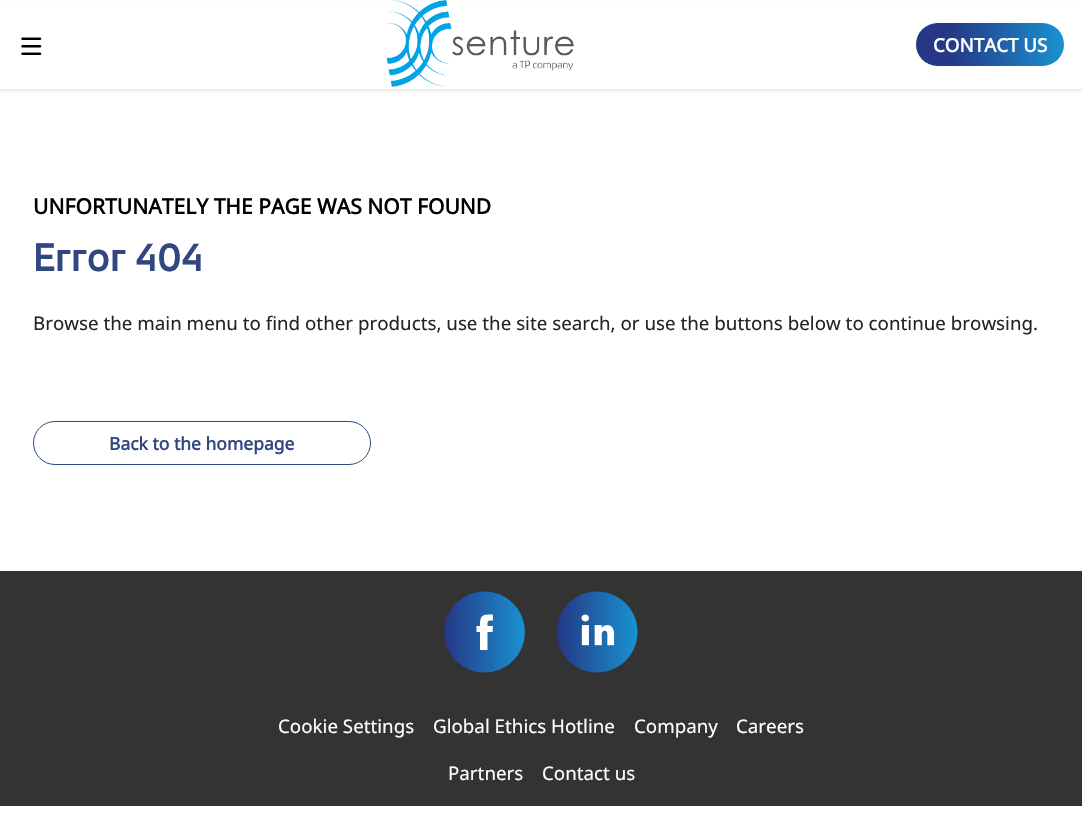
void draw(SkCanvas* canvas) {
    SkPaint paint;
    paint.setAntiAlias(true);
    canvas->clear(0xFFFFFFFF);
    paint.setColor(0x14000000);
    paint.setMaskFilter(SkMaskFilter::MakeBlur(kNormal_SkBlurStyle, 1));
    canvas->drawRect(SkRect::MakeXYWH(0, 3, 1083, 88), paint);
    paint.setMaskFilter(nullptr);
    paint.setColor(0xFFFFFFFF);
    canvas->drawRect(SkRect::MakeXYWH(0, 2, 1082, 87), paint);
    canvas->drawImageRect(SkImages::DeferredFromEncodedData(SkData::MakeFromFileName("img1.png")), SkRect::MakeXYWH(21, 37, 21, 18), SkSamplingOptions());
    canvas->drawImageRect(SkImages::DeferredFromEncodedData(SkData::MakeFromFileName("img2.png")), SkRect::MakeXYWH(386, 0, 188, 87), SkSamplingOptions());
    {
        const SkColor colors[] = {0xFF253785, 0xFF1892D1};
        const float stops[] = {0.22f, 1};
        const SkPoint ends[] = {{916, 44}, {1064, 44}};
        paint.setShader(SkGradientShader::MakeLinear(ends, colors, stops, 2, SkTileMode::kClamp));
        paint.setAlpha(255);
    }
    canvas->drawRoundRect(SkRect::MakeXYWH(916, 23, 148, 43), 21.5f, 21.5f, paint);
    SkFont font1(fontMgr->matchFamilyStyle("Noto Sans", SkFontStyle::Bold()), 18.75f);
    font1.setSubpixel(true);
    paint.setShader(nullptr);
    paint.setColor(0xFFFFFFFF);
    canvas->drawString("CONTACT US", 933, 52, font1, paint);
    SkFont font2(fontMgr->matchFamilyStyle("Noto Sans", SkFontStyle::Bold()), 21.1f);
    font2.setSubpixel(true);
    paint.setColor(0xFF000000);
    canvas->drawString("UNFORTUNATELY THE PAGE WAS NOT FOUND", 33, 214, font2, paint);
    SkFont font3(fontMgr->matchFamilyStyle("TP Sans", SkFontStyle(500, SkFontStyle::kNormal_Width, SkFontStyle::kUpright_Slant)), 45);
    font3.setSubpixel(true);
    paint.setColor(0xFF304780);
    canvas->drawString("Error 404", 33, 271, font3, paint);
    SkFont font4(fontMgr->matchFamilyStyle("Noto Sans", SkFontStyle::Normal()), 18.75f);
    font4.setSubpixel(true);
    paint.setColor(0xFF212529);
    canvas->drawString("Browse the main menu to find other products, use the site search, or use the buttons below to continue browsing.", 33, 330, font4, paint);
    paint.setStyle(SkPaint::kStroke_Style);
    paint.setStrokeWidth(1);
    paint.setColor(0xFF304780);
    canvas->drawRoundRect(SkRect::MakeXYWH(33.5f, 421.5f, 337, 43), 21.5f, 21.5f, paint);
    SkFont font5(fontMgr->matchFamilyStyle("Noto Sans", SkFontStyle::Bold()), 17.5f);
    font5.setSubpixel(true);
    paint.setStyle(SkPaint::kFill_Style);
    canvas->drawString("Back to the homepage", 109, 450, font5, paint);
    paint.setColor(0xFF333333);
    canvas->drawRect(SkRect::MakeXYWH(0, 571, 1082, 235), paint);
    {
        const SkColor colors[] = {0xFF253785, 0xFF1892D1};
        const float stops[] = {0, 1};
        const SkPoint ends[] = {{444, 632}, {525, 632}};
        paint.setShader(SkGradientShader::MakeLinear(ends, colors, stops, 2, SkTileMode::kClamp));
        paint.setAlpha(255);
    }
    canvas->drawCircle(484.5f, 632, 40.5f, paint);
    paint.setShader(nullptr);
    paint.setColor(0xFFFFFFFF);
    canvas->drawPath(SkPathBuilder().moveTo(487.5f, 632).lineTo(487.5f, 650).lineTo(480, 650).lineTo(480, 632).lineTo(476.5f, 632).lineTo(476.5f, 626).lineTo(480, 626).cubicTo(480, 614.5f, 482.5f, 614.5f, 493, 614.5f).lineTo(493, 620.5f).cubicTo(487.5f, 620.5f, 487.5f, 620.5f, 487.5f, 626).lineTo(493, 626).lineTo(492.5f, 632).close().detach(), paint);
    canvas->drawImageRect(SkImages::DeferredFromEncodedData(SkData::MakeFromFileName("img3.png")), SkRect::MakeXYWH(556, 591, 82, 82), SkSamplingOptions());
    canvas->drawString("Cookie Settings", 278, 733, font4, paint);
    canvas->drawString("Global Ethics Hotline", 433, 733, font4, paint);
    canvas->drawString("Company", 634, 733, font4, paint);
    canvas->drawString("Careers", 736, 733, font4, paint);
    canvas->drawString("Partners", 448, 780, font4, paint);
    canvas->drawString("Contact us", 542, 780, font4, paint);
}
